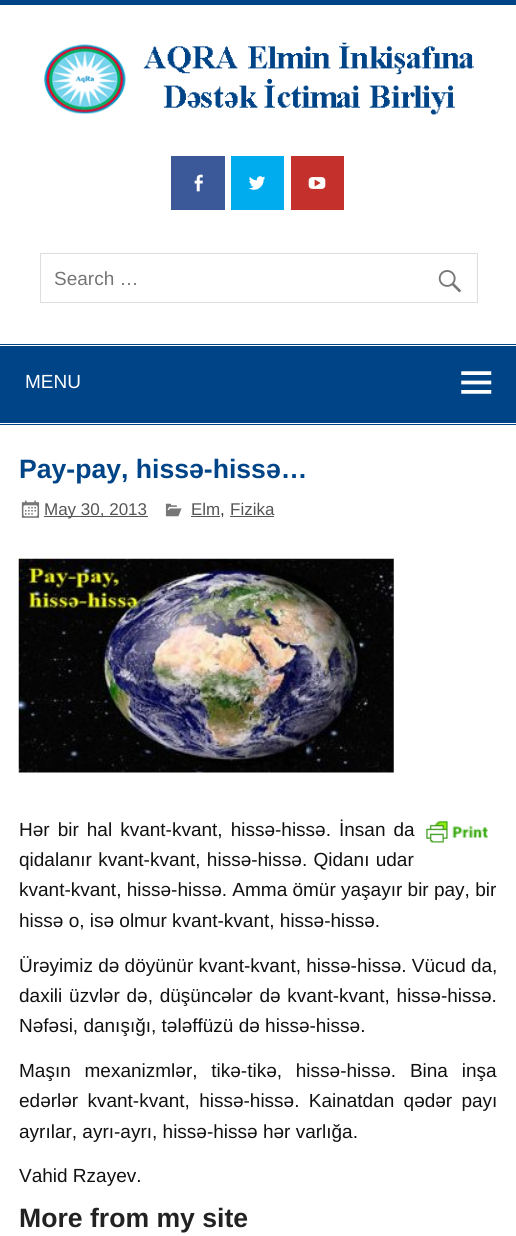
import math
import cairo


def write_spaced(ctx, x, y, s, letter, word):
	ctx.move_to(x, y)
	for ch in s:
		ctx.show_text(ch)
		ctx.rel_move_to(letter + word * (ch == ' '), 0)

def paste(ctx, path, x, y, w, h):
	ctx.save()
	ctx.set_source_surface(cairo.ImageSurface.create_from_png(path), x, y)
	ctx.rectangle(x, y, w, h)
	ctx.fill()
	ctx.restore()

def draw(ctx):
	ctx.set_source_rgb(1, 1, 1)
	ctx.paint()
	ctx.set_source_rgb(0, 0.267, 0.533)
	ctx.rectangle(0, 0, 516, 5)
	ctx.fill()
	paste(ctx, 'media/1.png', 44, 42, 430, 73)
	ctx.set_source_rgb(0.231, 0.349, 0.596)
	ctx.rectangle(171, 156, 54, 54)
	ctx.fill()
	paste(ctx, 'media/2.png', 194, 174, 9, 18)
	ctx.set_source_rgb(0, 0.675, 0.929)
	ctx.rectangle(231, 156, 53, 54)
	ctx.fill()
	paste(ctx, 'media/3.png', 248, 176, 18, 14)
	ctx.set_source_rgb(0.769, 0.188, 0.169)
	ctx.rectangle(291, 156, 53, 54)
	ctx.fill()
	paste(ctx, 'media/4.png', 308, 177, 18, 12)
	ctx.rectangle(40.5, 253.5, 437, 49)
	ctx.set_source_rgb(0.867, 0.867, 0.867)
	ctx.set_line_width(1)
	ctx.stroke()
	ctx.select_font_face('Liberation Sans')
	ctx.set_font_size(19)
	ctx.set_source_rgb(0.459, 0.459, 0.459)
	ctx.move_to(54, 285)
	ctx.show_text('Search …')
	paste(ctx, 'media/5.png', 438, 270, 24, 23)
	ctx.set_source_rgb(0, 0.267, 0.533)
	ctx.rectangle(0, 344, 516, 1)
	ctx.rectangle(0, 424, 516, 1)
	ctx.rectangle(0, 346, 516, 77)
	ctx.fill()
	ctx.set_source_rgb(1, 1, 1)
	ctx.move_to(25, 388)
	ctx.show_text('MENU')
	paste(ctx, 'media/6.png', 461, 371, 31, 23)
	ctx.select_font_face('Liberation Sans', cairo.FONT_SLANT_NORMAL, cairo.FONT_WEIGHT_BOLD)
	ctx.set_font_size(26.6)
	ctx.set_source_rgb(0, 0.267, 0.533)
	ctx.move_to(19, 478)
	ctx.show_text('Pay-pay, hissə-hissə…')
	paste(ctx, 'media/7.png', 21, 500, 19, 18)
	ctx.set_source_rgb(0.333, 0.333, 0.333)
	ctx.rectangle(44, 516, 104, 1)
	ctx.fill()
	ctx.select_font_face('Liberation Sans')
	ctx.set_font_size(17)
	ctx.move_to(44, 515)
	ctx.show_text('May 30, 2013')
	paste(ctx, 'media/8.png', 165, 503, 17, 14)
	ctx.move_to(191, 515)
	ctx.show_text('Elm')
	ctx.rectangle(191, 516, 29, 1)
	ctx.fill()
	ctx.set_source_rgb(0.2, 0.2, 0.2)
	ctx.move_to(220, 515)
	ctx.show_text(',')
	ctx.set_source_rgb(0.333, 0.333, 0.333)
	ctx.move_to(230, 515)
	ctx.show_text('Fizika')
	ctx.rectangle(230, 516, 44, 1)
	ctx.fill()
	paste(ctx, 'media/9.png', 18, 558, 376, 215)
	ctx.set_font_size(19)
	ctx.set_source_rgb(0.067, 0.067, 0.067)
	write_spaced(ctx, 19, 836, 'Hər bir hal kvant-kvant, hissə-hissə. İnsan da', 0, 2.75)
	write_spaced(ctx, 19, 866, 'qidalanır kvant-kvant, hissə-hissə. Qidanı udar', 0, 1)
	ctx.move_to(19, 896)
	ctx.show_text('kvant-kvant, hissə-hissə. Amma ömür yaşayır bir pay, bir')
	ctx.move_to(19, 927)
	ctx.show_text('hissə o, isə olmur kvant-kvant, hissə-hissə.')
	paste(ctx, 'media/10.png', 426, 821, 62, 22)
	ctx.move_to(19, 972)
	ctx.show_text('Ürəyimiz də döyünür kvant-kvant, hissə-hissə. Vücud da,')
	write_spaced(ctx, 19, 1002, 'daxili üzvlər də, düşüncələr də kvant-kvant, hissə-hissə.', 0, 1.5)
	ctx.move_to(19, 1032)
	ctx.show_text('Nəfəsi, danışığı, tələffüzü də hissə-hissə.')
	write_spaced(ctx, 19, 1077, 'Maşın mexanizmlər, tikə-tikə, hissə-hissə. Bina inşa', 0, 8.5)
	write_spaced(ctx, 19, 1107, 'edərlər kvant-kvant, hissə-hissə. Kainatdan qədər payı', 0, 4)
	ctx.move_to(19, 1138)
	ctx.show_text('ayrılar, ayrı-ayrı, hissə-hissə hər varlığa.')
	ctx.move_to(19, 1182)
	ctx.show_text('Vahid Rzayev.')
	ctx.select_font_face('Liberation Sans', cairo.FONT_SLANT_NORMAL, cairo.FONT_WEIGHT_BOLD)
	ctx.set_font_size(26.6)
	ctx.set_source_rgb(0.133, 0.133, 0.133)
	ctx.move_to(19, 1227)
	ctx.show_text('More from my site')


surface = cairo.ImageSurface(cairo.FORMAT_RGB24, 516, 1236)
ctx = cairo.Context(surface)
options = cairo.FontOptions()
options.set_hint_metrics(cairo.HINT_METRICS_OFF)
options.set_hint_style(cairo.HINT_STYLE_NONE)
ctx.set_font_options(options)
ctx.set_miter_limit(4)
draw(ctx)
surface.write_to_png('image.png')
